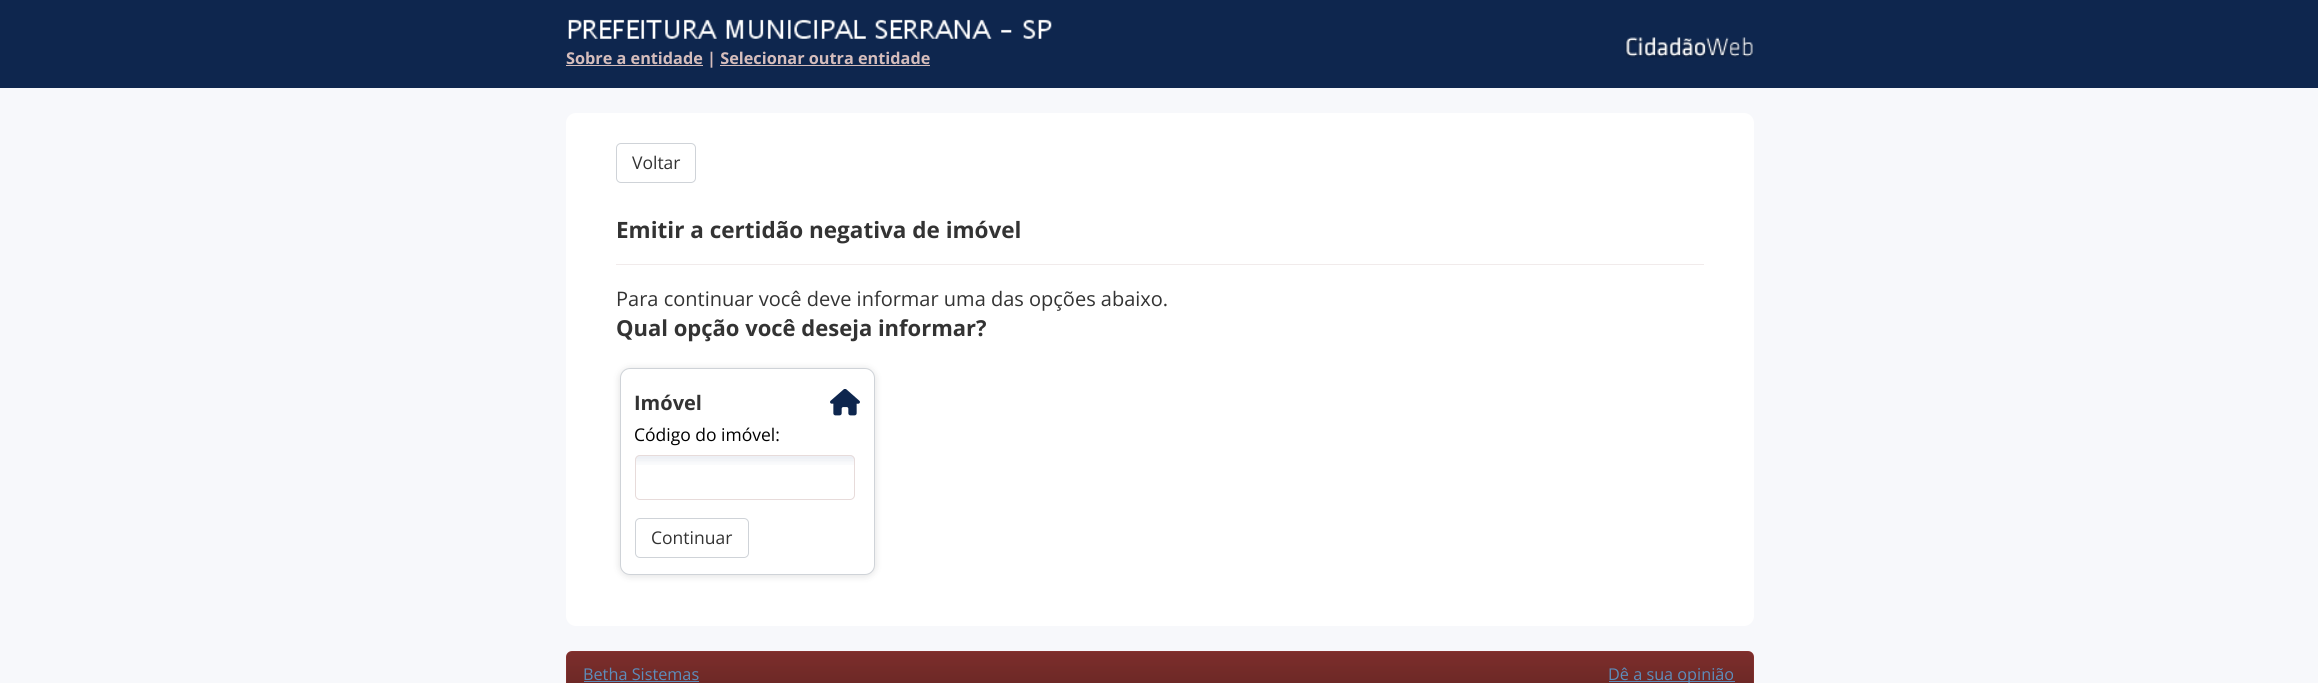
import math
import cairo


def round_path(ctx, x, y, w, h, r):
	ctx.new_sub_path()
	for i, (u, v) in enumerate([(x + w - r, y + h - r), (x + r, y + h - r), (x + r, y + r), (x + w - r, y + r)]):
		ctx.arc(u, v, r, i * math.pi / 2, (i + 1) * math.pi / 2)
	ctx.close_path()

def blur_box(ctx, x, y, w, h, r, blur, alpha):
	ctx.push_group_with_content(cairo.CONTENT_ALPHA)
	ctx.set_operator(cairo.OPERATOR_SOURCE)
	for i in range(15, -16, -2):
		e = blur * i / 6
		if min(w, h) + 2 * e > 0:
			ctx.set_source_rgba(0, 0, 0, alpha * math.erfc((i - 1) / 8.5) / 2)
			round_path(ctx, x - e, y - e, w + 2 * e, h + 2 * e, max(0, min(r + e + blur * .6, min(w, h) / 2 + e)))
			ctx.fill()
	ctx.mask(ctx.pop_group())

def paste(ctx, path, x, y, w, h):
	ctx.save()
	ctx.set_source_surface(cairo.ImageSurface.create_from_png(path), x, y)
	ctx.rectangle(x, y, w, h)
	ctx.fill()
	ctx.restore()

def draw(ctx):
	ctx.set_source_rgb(0.965, 0.969, 0.984)
	ctx.paint()
	ctx.set_source_rgb(0.055, 0.149, 0.306)
	ctx.rectangle(0, 0, 2318, 88)
	ctx.fill()
	paste(ctx, 'media/1.png', 568, 19, 484, 20)
	ctx.set_source_rgb(0.835, 0.741, 0.737)
	ctx.rectangle(566, 65, 137, 1)
	ctx.fill()
	ctx.select_font_face('Open Sans', cairo.FONT_SLANT_NORMAL, cairo.FONT_WEIGHT_BOLD)
	ctx.set_font_size(16.25)
	ctx.move_to(566, 64)
	ctx.show_text('Sobre a entidade | Selecionar outra entidade')
	ctx.rectangle(720, 65, 210, 1)
	ctx.fill()
	paste(ctx, 'media/2.png', 1625, 37, 128, 21)
	ctx.set_source_rgb(1, 1, 1)
	round_path(ctx, 566, 113, 1188, 513, 10)
	ctx.fill()
	round_path(ctx, 616.5, 143.5, 79, 39, 4.5)
	ctx.set_source_rgb(0.812, 0.827, 0.847)
	ctx.set_line_width(1)
	ctx.stroke()
	ctx.select_font_face('Open Sans')
	ctx.set_font_size(17.5)
	ctx.set_source_rgb(0.2, 0.2, 0.2)
	ctx.move_to(632, 169)
	ctx.show_text('Voltar')
	ctx.select_font_face('Open Sans', cairo.FONT_SLANT_NORMAL, cairo.FONT_WEIGHT_BOLD)
	ctx.set_font_size(22.5)
	ctx.move_to(616, 238)
	ctx.show_text('Emitir a certidão negativa de imóvel')
	ctx.set_source_rgb(0.945, 0.918, 0.918)
	ctx.rectangle(616, 264, 1088, 1)
	ctx.fill()
	ctx.select_font_face('Open Sans')
	ctx.set_font_size(20)
	ctx.set_source_rgb(0.2, 0.2, 0.2)
	ctx.move_to(616, 306)
	ctx.show_text('Para continuar você deve informar uma das opções abaixo.')
	ctx.select_font_face('Open Sans', cairo.FONT_SLANT_NORMAL, cairo.FONT_WEIGHT_BOLD)
	ctx.set_font_size(22)
	ctx.move_to(616, 336)
	ctx.show_text('Qual opção você deseja informar?')
	ctx.set_source_rgb(0.2, 0.2, 0.2)
	blur_box(ctx, 620, 369, 255, 207, 10, 4, 0.16)
	ctx.set_source_rgb(1, 1, 1)
	round_path(ctx, 620.5, 368.5, 254, 206, 9.5)
	ctx.fill_preserve()
	ctx.set_source_rgb(0.812, 0.827, 0.847)
	ctx.stroke()
	paste(ctx, 'media/3.png', 830, 389, 30, 27)
	ctx.set_font_size(20)
	ctx.set_source_rgb(0.2, 0.2, 0.2)
	ctx.move_to(634, 410)
	ctx.show_text('Imóvel')
	ctx.select_font_face('Open Sans')
	ctx.set_font_size(17.5)
	ctx.set_source_rgb(0, 0, 0)
	ctx.move_to(634, 441)
	ctx.show_text('Código do imóvel:')
	paste(ctx, 'media/4.png', 635, 455, 220, 10)
	round_path(ctx, 635.5, 455.5, 219, 44, 4.5)
	ctx.set_source_rgb(0.906, 0.859, 0.855)
	ctx.stroke()
	round_path(ctx, 635.5, 518.5, 113, 39, 4.5)
	ctx.set_source_rgb(0.812, 0.827, 0.847)
	ctx.stroke()
	ctx.set_source_rgb(0.2, 0.2, 0.2)
	ctx.move_to(651, 544)
	ctx.show_text('Continuar')
	ctx.set_source_rgb(0.573, 0.212, 0.2)
	round_path(ctx, 566, 651, 1188, 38, 6)
	ctx.fill()
	paste(ctx, 'media/5.png', 566, 651, 1188, 32)
	ctx.set_font_size(16.25)
	ctx.set_source_rgb(0.365, 0.553, 0.733)
	ctx.move_to(583, 680)
	ctx.show_text('Betha Sistemas')
	ctx.rectangle(584, 681, 115, 1)
	ctx.fill()
	ctx.rectangle(1609, 681, 126, 1)
	ctx.fill()
	ctx.move_to(1608, 680)
	ctx.show_text('Dê a sua opinião')


surface = cairo.ImageSurface(cairo.FORMAT_RGB24, 2318, 683)
ctx = cairo.Context(surface)
options = cairo.FontOptions()
options.set_hint_metrics(cairo.HINT_METRICS_OFF)
options.set_hint_style(cairo.HINT_STYLE_NONE)
ctx.set_font_options(options)
ctx.set_miter_limit(4)
draw(ctx)
surface.write_to_png('image.png')
